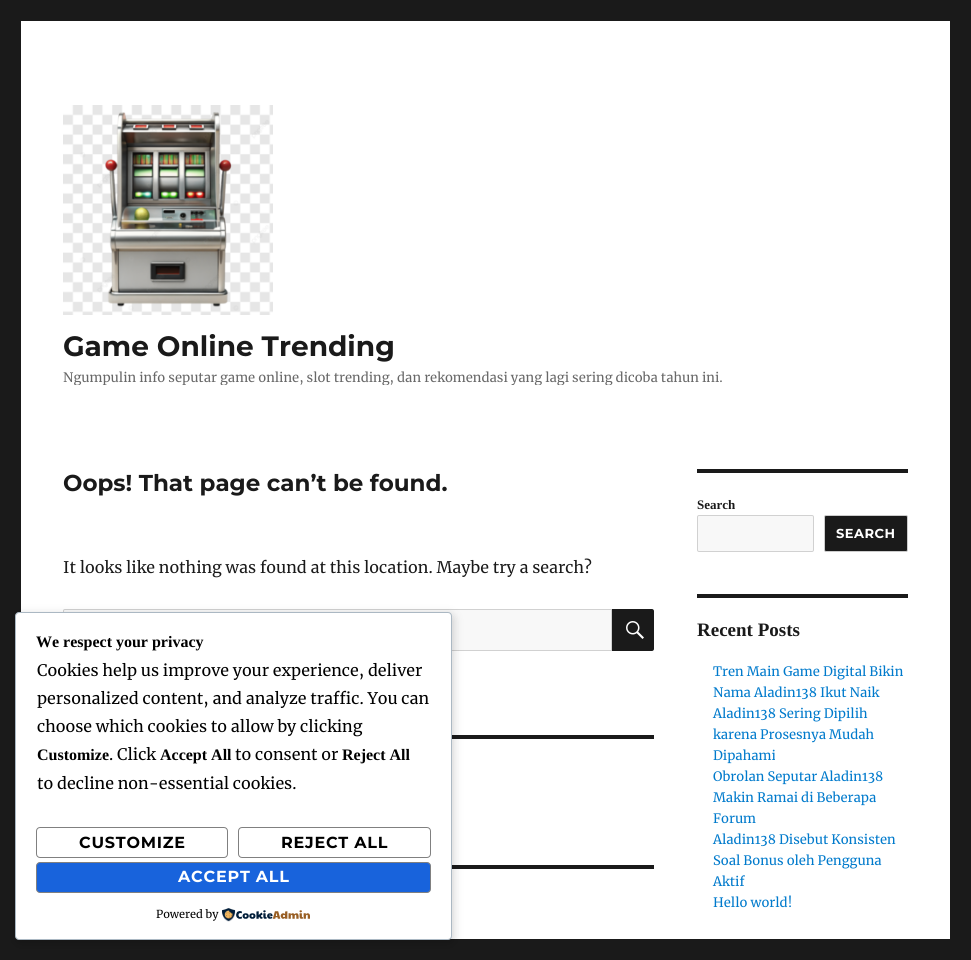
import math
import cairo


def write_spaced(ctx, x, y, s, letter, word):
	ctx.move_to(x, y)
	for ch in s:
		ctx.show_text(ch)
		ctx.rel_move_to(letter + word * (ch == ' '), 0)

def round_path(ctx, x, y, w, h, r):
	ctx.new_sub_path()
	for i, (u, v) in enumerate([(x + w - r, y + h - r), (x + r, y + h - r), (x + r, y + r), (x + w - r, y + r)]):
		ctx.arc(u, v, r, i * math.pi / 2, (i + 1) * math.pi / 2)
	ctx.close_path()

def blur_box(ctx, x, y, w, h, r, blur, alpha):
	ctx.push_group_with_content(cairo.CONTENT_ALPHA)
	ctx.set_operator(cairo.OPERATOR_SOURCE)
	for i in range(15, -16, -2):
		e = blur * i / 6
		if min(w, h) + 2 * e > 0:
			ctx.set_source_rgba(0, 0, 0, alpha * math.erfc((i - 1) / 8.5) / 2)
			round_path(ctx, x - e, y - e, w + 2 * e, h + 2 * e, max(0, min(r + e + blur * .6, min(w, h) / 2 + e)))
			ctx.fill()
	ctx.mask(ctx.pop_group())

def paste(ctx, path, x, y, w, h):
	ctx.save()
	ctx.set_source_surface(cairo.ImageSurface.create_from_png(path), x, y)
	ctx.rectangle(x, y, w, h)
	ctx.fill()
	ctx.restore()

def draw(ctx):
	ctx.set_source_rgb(0.102, 0.102, 0.102)
	ctx.paint()
	ctx.set_source_rgb(1, 1, 1)
	ctx.rectangle(21, 21, 929, 918)
	ctx.fill()
	paste(ctx, 'media/1.png', 63, 105, 210, 210)
	ctx.select_font_face('Montserrat Thin')
	ctx.set_font_size(28)
	ctx.set_source_rgb(0.102, 0.102, 0.102)
	ctx.move_to(63, 356)
	ctx.show_text('Game Online Trending')
	ctx.save()
	ctx.rectangle(63, 105, 660, 280)
	ctx.clip()
	ctx.select_font_face('Merriweather')
	ctx.set_font_size(13)
	ctx.set_source_rgb(0.408, 0.408, 0.408)
	ctx.move_to(63, 382)
	ctx.show_text('Ngumpulin info seputar game online, slot trending, dan rekomendasi yang lagi sering dicoba tahun ini.')
	ctx.restore()
	ctx.set_font_size(23)
	ctx.move_to(63, 491)
	ctx.show_text('Oops! That page can’t be found.')
	ctx.select_font_face('Merriweather')
	ctx.set_font_size(16)
	ctx.move_to(63, 573)
	ctx.show_text('It looks like nothing was found at this location. Maybe try a search?')
	ctx.set_source_rgb(0.969, 0.969, 0.969)
	ctx.new_path()
	ctx.move_to(65, 609.5)
	ctx.line_to(611.5, 609.5)
	ctx.line_to(611.5, 650.5)
	ctx.line_to(65, 650.5)
	ctx.curve_to(64, 650.5, 63.5, 650, 63.5, 649)
	ctx.line_to(63.5, 611)
	ctx.curve_to(63.5, 610, 64, 609.5, 65, 609.5)
	ctx.close_path()
	ctx.fill_preserve()
	ctx.set_source_rgb(0.82, 0.82, 0.82)
	ctx.set_line_width(1)
	ctx.stroke()
	ctx.set_source_rgb(0.102, 0.102, 0.102)
	ctx.new_path()
	ctx.move_to(612, 609)
	ctx.line_to(652, 609)
	ctx.curve_to(653, 609, 654, 610, 654, 611)
	ctx.line_to(654, 649)
	ctx.curve_to(654, 650, 653, 651, 652, 651)
	ctx.line_to(612, 651)
	ctx.close_path()
	ctx.fill()
	paste(ctx, 'media/2.png', 626, 621, 18, 18)
	ctx.rectangle(452, 735, 202, 4)
	ctx.rectangle(452, 865, 202, 4)
	ctx.rectangle(697, 469, 211, 4)
	ctx.fill()
	ctx.select_font_face('Liberation Serif', cairo.FONT_SLANT_NORMAL, cairo.FONT_WEIGHT_BOLD)
	ctx.set_font_size(13)
	ctx.move_to(697, 509)
	ctx.show_text('Search')
	ctx.set_source_rgb(0.969, 0.969, 0.969)
	round_path(ctx, 697.5, 515.5, 116, 36, 1.5)
	ctx.fill_preserve()
	ctx.set_source_rgb(0.82, 0.82, 0.82)
	ctx.stroke()
	ctx.set_source_rgb(0.102, 0.102, 0.102)
	round_path(ctx, 824.5, 515.5, 83, 36, 1.5)
	ctx.fill_preserve()
	ctx.set_source_rgb(0.8, 0.8, 0.8)
	ctx.stroke()
	ctx.select_font_face('Montserrat Thin')
	ctx.set_source_rgb(1, 1, 1)
	write_spaced(ctx, 836, 538, 'SEARCH', 0.5, 0)
	ctx.set_source_rgb(0.102, 0.102, 0.102)
	ctx.rectangle(697, 594, 211, 4)
	ctx.fill()
	ctx.select_font_face('Liberation Serif', cairo.FONT_SLANT_NORMAL, cairo.FONT_WEIGHT_BOLD)
	ctx.set_font_size(19)
	ctx.move_to(697, 636)
	ctx.show_text('Recent Posts')
	ctx.select_font_face('Merriweather')
	ctx.set_font_size(13)
	ctx.set_source_rgb(0, 0.478, 0.8)
	for x, y, s in [
		(713, 676, 'Tren Main Game Digital Bikin'),
		(713, 697, 'Nama Aladin138 Ikut Naik'),
		(713, 718, 'Aladin138 Sering Dipilih'),
		(713, 739, 'karena Prosesnya Mudah'),
		(713, 760, 'Dipahami'),
		(713, 781, 'Obrolan Seputar Aladin138'),
		(713, 802, 'Makin Ramai di Beberapa'),
		(713, 823, 'Forum'),
		(713, 844, 'Aladin138 Disebut Konsisten'),
		(713, 865, 'Soal Bonus oleh Pengguna'),
		(713, 886, 'Aktif'),
		(713, 907, 'Hello world!'),
	]:
		ctx.move_to(x, y)
		ctx.show_text(s)
	ctx.set_source_rgb(0, 0, 0)
	blur_box(ctx, 16, 615, 437, 328, 4, 5, 0.2)
	ctx.set_source_rgb(1, 1, 1)
	round_path(ctx, 15.5, 612.5, 436, 327, 3.5)
	ctx.fill_preserve()
	ctx.set_source_rgb(0.671, 0.722, 0.765)
	ctx.stroke()
	ctx.select_font_face('Liberation Serif', cairo.FONT_SLANT_NORMAL, cairo.FONT_WEIGHT_BOLD)
	ctx.set_font_size(16)
	ctx.set_source_rgb(0, 0, 0)
	ctx.move_to(36, 647)
	ctx.show_text('We respect your privacy')
	ctx.select_font_face('Merriweather')
	for x, y, s in [
		(37, 676, 'Cookies help us improve your experience, deliver'),
		(37, 704, 'personalized content, and analyze traffic. You can'),
		(37, 732, 'choose which cookies to allow by clicking'),
	]:
		ctx.move_to(x, y)
		ctx.show_text(s)
	ctx.select_font_face('Liberation Serif', cairo.FONT_SLANT_NORMAL, cairo.FONT_WEIGHT_BOLD)
	ctx.move_to(37, 760)
	ctx.show_text('Customize')
	ctx.select_font_face('Merriweather')
	ctx.move_to(109, 760)
	ctx.show_text('. Click')
	ctx.select_font_face('Liberation Serif', cairo.FONT_SLANT_NORMAL, cairo.FONT_WEIGHT_BOLD)
	ctx.move_to(160, 760)
	ctx.show_text('Accept All')
	ctx.select_font_face('Merriweather')
	ctx.move_to(235, 760)
	ctx.show_text('to consent or')
	ctx.select_font_face('Liberation Serif', cairo.FONT_SLANT_NORMAL, cairo.FONT_WEIGHT_BOLD)
	ctx.move_to(342, 760)
	ctx.show_text('Reject All')
	ctx.select_font_face('Merriweather')
	ctx.move_to(37, 789)
	ctx.show_text('to decline non-essential cookies.')
	round_path(ctx, 36.5, 827.5, 191, 30, 3.5)
	ctx.set_source_rgb(0.502, 0.502, 0.502)
	ctx.stroke()
	ctx.select_font_face('Montserrat Thin')
	ctx.set_source_rgb(0, 0, 0)
	write_spaced(ctx, 79, 848, 'CUSTOMIZE', 0.75, 0)
	round_path(ctx, 238.5, 827.5, 192, 30, 3.5)
	ctx.set_source_rgb(0.502, 0.502, 0.502)
	ctx.stroke()
	ctx.set_source_rgb(0, 0, 0)
	write_spaced(ctx, 281, 848, 'REJECT ALL', 0.75, 0)
	ctx.set_source_rgb(0.094, 0.388, 0.863)
	round_path(ctx, 36.5, 862.5, 394, 30, 3.5)
	ctx.fill_preserve()
	ctx.set_source_rgb(0.502, 0.502, 0.502)
	ctx.stroke()
	ctx.set_source_rgb(1, 1, 1)
	write_spaced(ctx, 178, 882, 'ACCEPT ALL', 0.75, 0)
	ctx.select_font_face('Merriweather')
	ctx.set_font_size(11)
	ctx.set_source_rgb(0, 0, 0)
	ctx.move_to(156, 918)
	ctx.show_text('Powered by')
	paste(ctx, 'media/3.png', 222, 908, 88, 14)


surface = cairo.ImageSurface(cairo.FORMAT_RGB24, 971, 960)
ctx = cairo.Context(surface)
options = cairo.FontOptions()
options.set_hint_metrics(cairo.HINT_METRICS_OFF)
options.set_hint_style(cairo.HINT_STYLE_NONE)
ctx.set_font_options(options)
ctx.set_miter_limit(4)
draw(ctx)
surface.write_to_png('image.png')
